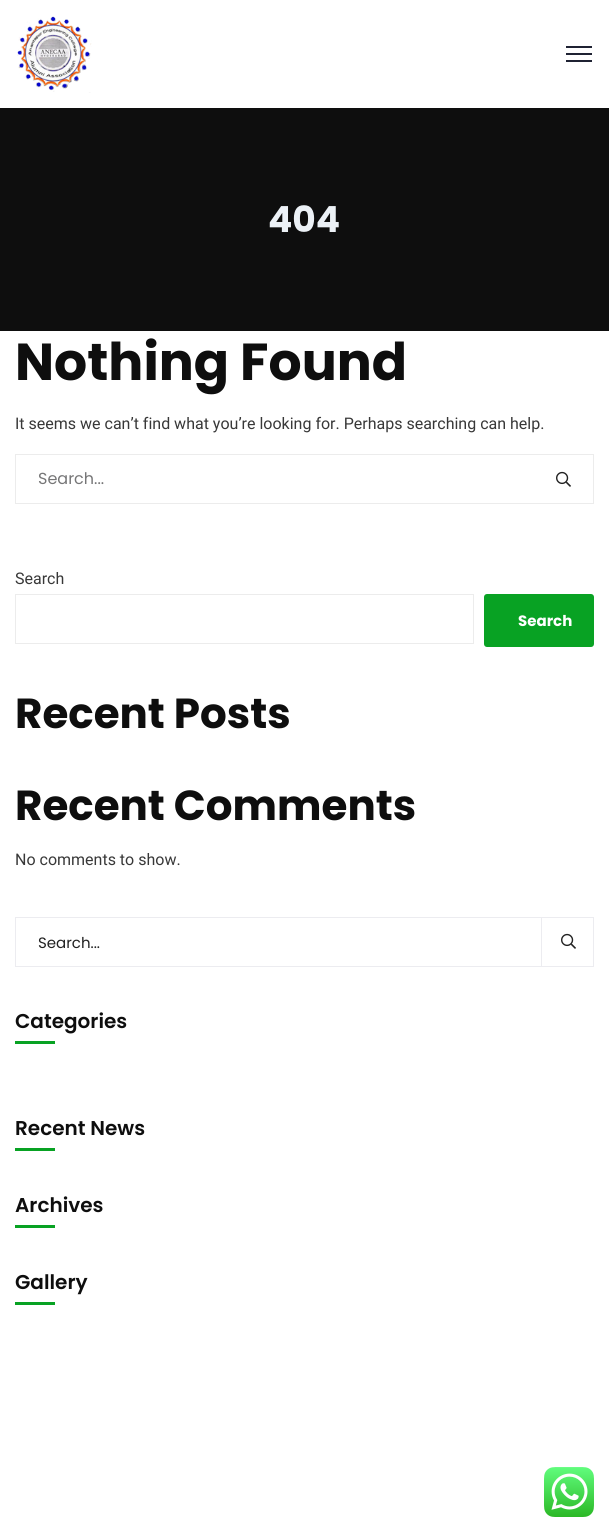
import math
import cairo


def round_path(ctx, x, y, w, h, r):
	ctx.new_sub_path()
	for i, (u, v) in enumerate([(x + w - r, y + h - r), (x + r, y + h - r), (x + r, y + r), (x + w - r, y + r)]):
		ctx.arc(u, v, r, i * math.pi / 2, (i + 1) * math.pi / 2)
	ctx.close_path()

def paste(ctx, path, x, y, w, h):
	ctx.save()
	ctx.set_source_surface(cairo.ImageSurface.create_from_png(path), x, y)
	ctx.rectangle(x, y, w, h)
	ctx.fill()
	ctx.restore()

def draw(ctx):
	ctx.set_source_rgb(1, 1, 1)
	ctx.paint()
	paste(ctx, 'media/1.png', 17, 16, 75, 77)
	ctx.set_source_rgb(0.122, 0.133, 0.2)
	ctx.rectangle(566, 46, 26, 2)
	ctx.rectangle(566, 53, 26, 2)
	ctx.rectangle(566, 60, 26, 2)
	ctx.fill()
	ctx.set_source_rgb(0.055, 0.055, 0.055)
	ctx.rectangle(0, 108, 609, 223)
	ctx.fill()
	ctx.select_font_face('Poppins', cairo.FONT_SLANT_NORMAL, cairo.FONT_WEIGHT_BOLD)
	ctx.set_font_size(36)
	ctx.set_source_rgb(0.925, 0.945, 0.961)
	ctx.move_to(268, 232)
	ctx.show_text('404')
	ctx.set_font_size(52)
	ctx.set_source_rgb(0.055, 0.055, 0.055)
	ctx.move_to(15, 380)
	ctx.show_text('Nothing Found')
	ctx.select_font_face('Roboto')
	ctx.set_font_size(16)
	ctx.set_source_rgb(0.22, 0.22, 0.22)
	ctx.move_to(15, 429)
	ctx.show_text('It seems we can’t find what you’re looking for. Perhaps searching can help.')
	ctx.rectangle(15.5, 454.5, 578, 49)
	ctx.set_source_rgb(0.925, 0.925, 0.925)
	ctx.set_line_width(1)
	ctx.stroke()
	ctx.select_font_face('Poppins')
	ctx.set_source_rgb(0.463, 0.463, 0.467)
	ctx.move_to(38, 484)
	ctx.show_text('Search...')
	paste(ctx, 'media/2.png', 556, 471, 15, 16)
	ctx.select_font_face('Roboto')
	ctx.set_source_rgb(0.22, 0.22, 0.22)
	ctx.move_to(15, 584)
	ctx.show_text('Search')
	ctx.rectangle(15.5, 594.5, 458, 49)
	ctx.set_source_rgb(0.925, 0.925, 0.925)
	ctx.stroke()
	ctx.set_source_rgb(0.035, 0.635, 0.137)
	round_path(ctx, 484, 594, 110, 53, 3)
	ctx.fill()
	ctx.select_font_face('Poppins', cairo.FONT_SLANT_NORMAL, cairo.FONT_WEIGHT_BOLD)
	ctx.set_font_size(15)
	ctx.set_source_rgb(1, 1, 1)
	ctx.move_to(518, 626)
	ctx.show_text('Search')
	ctx.set_font_size(42)
	ctx.set_source_rgb(0.055, 0.055, 0.055)
	ctx.move_to(15, 728)
	ctx.show_text('Recent Posts')
	ctx.move_to(15, 820)
	ctx.show_text('Recent Comments')
	ctx.select_font_face('Roboto')
	ctx.set_font_size(16)
	ctx.set_source_rgb(0.22, 0.22, 0.22)
	ctx.move_to(15, 865)
	ctx.show_text('No comments to show.')
	ctx.rectangle(15.5, 917.5, 578, 49)
	ctx.set_source_rgb(0.925, 0.925, 0.941)
	ctx.stroke()
	ctx.select_font_face('Poppins')
	ctx.set_font_size(15)
	ctx.set_source_rgb(0.133, 0.133, 0.133)
	ctx.move_to(38, 948)
	ctx.show_text('Search...')
	ctx.set_source_rgb(0.925, 0.925, 0.941)
	ctx.rectangle(541, 917, 1, 50)
	ctx.fill()
	paste(ctx, 'media/2.png', 561, 933, 15, 16)
	ctx.select_font_face('Poppins SemiBold')
	ctx.set_font_size(20)
	ctx.set_source_rgb(0.055, 0.055, 0.055)
	ctx.move_to(15, 1028)
	ctx.show_text('Categories')
	ctx.set_source_rgb(0.035, 0.635, 0.137)
	ctx.rectangle(15, 1041, 40, 3)
	ctx.fill()
	ctx.set_source_rgb(0.055, 0.055, 0.055)
	ctx.move_to(15, 1135)
	ctx.show_text('Recent News')
	ctx.set_source_rgb(0.035, 0.635, 0.137)
	ctx.rectangle(15, 1148, 40, 3)
	ctx.fill()
	ctx.set_source_rgb(0.055, 0.055, 0.055)
	ctx.move_to(15, 1212)
	ctx.show_text('Archives')
	ctx.set_source_rgb(0.035, 0.635, 0.137)
	ctx.rectangle(15, 1225, 40, 3)
	ctx.fill()
	ctx.set_source_rgb(0.055, 0.055, 0.055)
	ctx.move_to(15, 1289)
	ctx.show_text('Gallery')
	ctx.set_source_rgb(0.035, 0.635, 0.137)
	ctx.rectangle(15, 1302, 40, 3)
	ctx.fill()
	paste(ctx, 'media/3.png', 544, 1467, 50, 50)


surface = cairo.ImageSurface(cairo.FORMAT_RGB24, 609, 1532)
ctx = cairo.Context(surface)
options = cairo.FontOptions()
options.set_hint_metrics(cairo.HINT_METRICS_OFF)
options.set_hint_style(cairo.HINT_STYLE_NONE)
ctx.set_font_options(options)
ctx.set_miter_limit(4)
draw(ctx)
surface.write_to_png('image.png')
